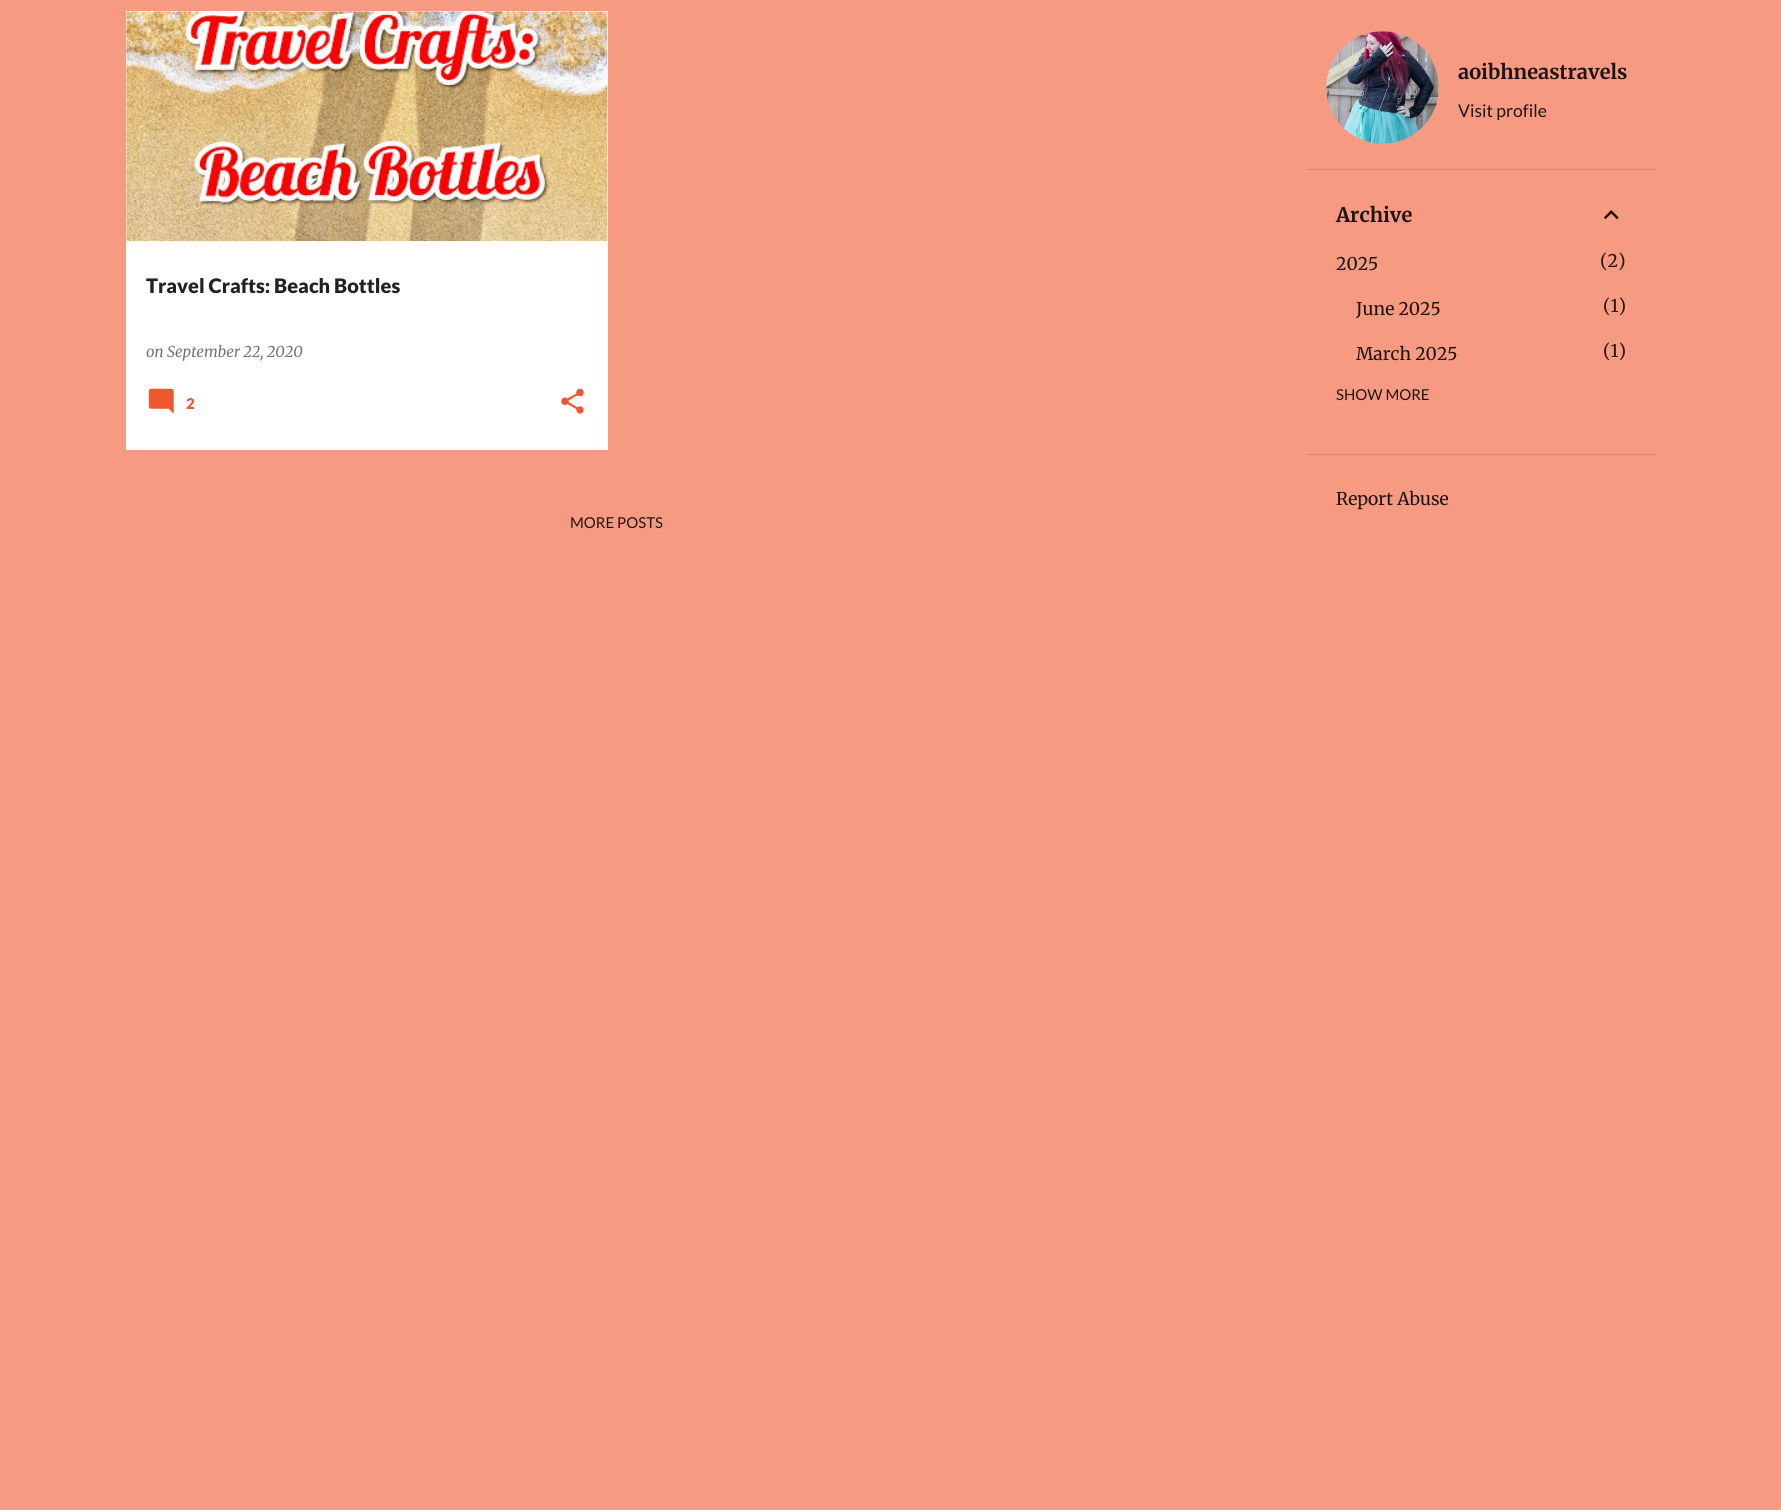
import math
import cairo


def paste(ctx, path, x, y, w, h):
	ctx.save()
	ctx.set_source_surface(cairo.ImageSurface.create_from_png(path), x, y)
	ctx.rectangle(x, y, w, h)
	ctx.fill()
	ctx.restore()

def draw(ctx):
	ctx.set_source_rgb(0.961, 0.608, 0.51)
	ctx.paint()
	ctx.set_source_rgb(1, 1, 1)
	ctx.rectangle(126, 11, 482, 439)
	ctx.fill()
	paste(ctx, 'media/1.png', 126, 11, 482, 231)
	ctx.save()
	ctx.rectangle(146, 271, 442, 60)
	ctx.clip()
	ctx.select_font_face('Lato Black')
	ctx.set_font_size(20)
	ctx.set_source_rgb(0.129, 0.129, 0.129)
	ctx.move_to(146, 293)
	ctx.show_text('Travel Crafts: Beach Bottles')
	ctx.restore()
	ctx.select_font_face('Merriweather', cairo.FONT_SLANT_ITALIC)
	ctx.set_font_size(15)
	ctx.set_source_rgb(0.459, 0.459, 0.459)
	ctx.move_to(146, 357)
	ctx.show_text('on September 22, 2020')
	paste(ctx, 'media/2.png', 148, 388, 26, 26)
	ctx.select_font_face('Lato Black')
	ctx.set_source_rgb(0.933, 0.345, 0.18)
	ctx.move_to(186, 409)
	ctx.show_text('2')
	paste(ctx, 'media/3.png', 561, 388, 23, 26)
	ctx.select_font_face('Lato')
	ctx.set_source_rgb(0.125, 0.078, 0.067)
	ctx.move_to(570, 528)
	ctx.show_text('MORE POSTS')
	paste(ctx, 'media/4.png', 1326, 31, 113, 113)
	ctx.select_font_face('Merriweather', cairo.FONT_SLANT_NORMAL, cairo.FONT_WEIGHT_BOLD)
	ctx.set_font_size(20)
	ctx.move_to(1458, 79)
	ctx.show_text('aoibhneastravels')
	ctx.select_font_face('Lato')
	ctx.set_font_size(17.5)
	ctx.move_to(1458, 117)
	ctx.show_text('Visit profile')
	ctx.set_source_rgb(0.847, 0.533, 0.447)
	ctx.rectangle(1306, 169, 350, 1)
	ctx.fill()
	ctx.select_font_face('Merriweather', cairo.FONT_SLANT_NORMAL, cairo.FONT_WEIGHT_BOLD)
	ctx.set_font_size(20)
	ctx.set_source_rgb(0.125, 0.078, 0.067)
	ctx.move_to(1336, 222)
	ctx.show_text('Archive')
	paste(ctx, 'media/5.png', 1603, 210, 16, 10)
	ctx.select_font_face('Merriweather')
	ctx.set_font_size(17.5)
	for x, y, s in [
		(1336, 270, '2025'),
		(1600, 267, '(2)'),
		(1356, 315, 'June 2025'),
		(1603, 312, '(1)'),
		(1356, 360, 'March 2025'),
		(1603, 357, '(1)'),
	]:
		ctx.move_to(x, y)
		ctx.show_text(s)
	ctx.select_font_face('Lato')
	ctx.set_font_size(15)
	ctx.move_to(1336, 400)
	ctx.show_text('SHOW MORE')
	ctx.set_source_rgb(0.847, 0.533, 0.447)
	ctx.rectangle(1306, 454, 350, 1)
	ctx.fill()
	ctx.select_font_face('Merriweather')
	ctx.set_font_size(17.5)
	ctx.set_source_rgb(0.125, 0.078, 0.067)
	ctx.move_to(1336, 505)
	ctx.show_text('Report Abuse')


surface = cairo.ImageSurface(cairo.FORMAT_RGB24, 1781, 1510)
ctx = cairo.Context(surface)
options = cairo.FontOptions()
options.set_hint_metrics(cairo.HINT_METRICS_OFF)
options.set_hint_style(cairo.HINT_STYLE_NONE)
ctx.set_font_options(options)
ctx.set_miter_limit(4)
draw(ctx)
surface.write_to_png('image.png')
